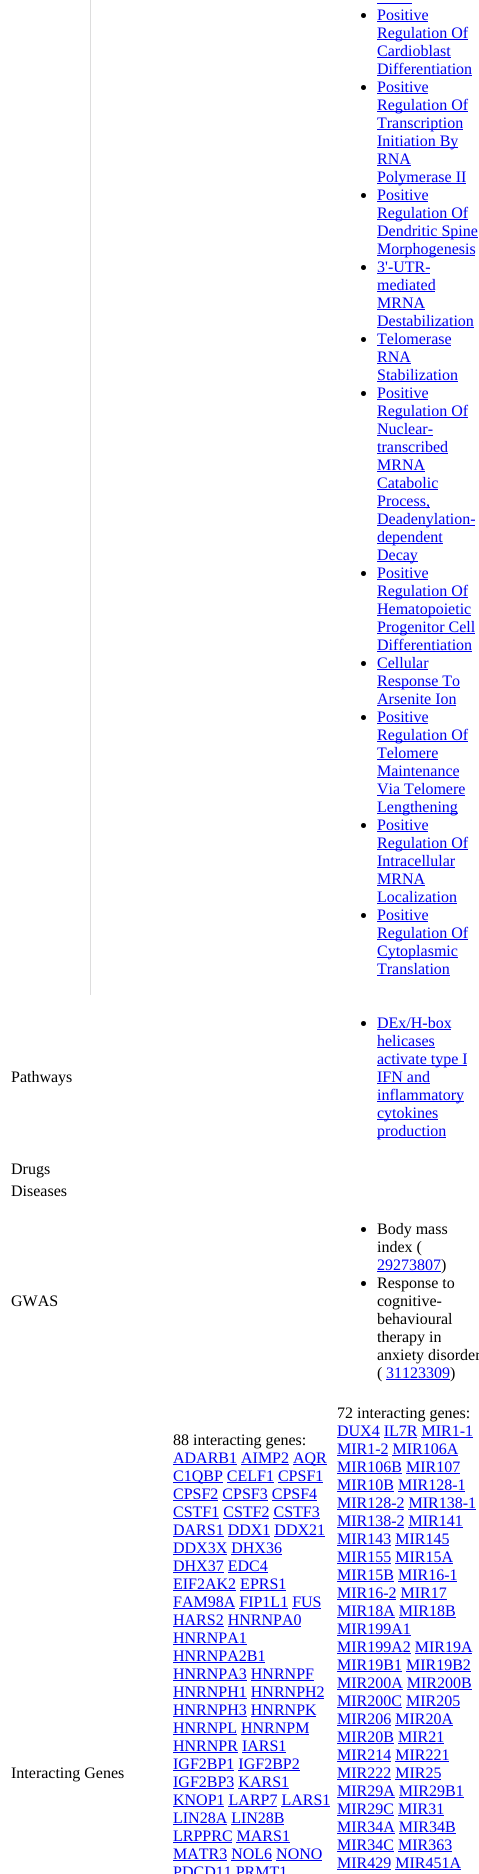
import math
import cairo


def draw(ctx):
	ctx.set_source_rgb(1, 1, 1)
	ctx.paint()
	ctx.set_source_rgb(0.867, 0.867, 0.867)
	ctx.rectangle(90, 0, 1, 995)
	ctx.fill()
	ctx.set_source_rgb(0, 0, 0.933)
	ctx.rectangle(377, 3, 35, 1)
	ctx.fill()
	ctx.set_source_rgb(0, 0, 0)
	ctx.arc(363.5, 15.5, 2.5, 0, 2 * math.pi)
	ctx.fill()
	ctx.select_font_face('Liberation Serif')
	ctx.set_font_size(16)
	ctx.set_source_rgb(0, 0, 0.933)
	ctx.move_to(377, 20)
	ctx.show_text('Positive')
	ctx.rectangle(377, 21, 51, 1)
	ctx.fill()
	ctx.rectangle(377, 39, 91, 1)
	ctx.fill()
	ctx.move_to(377, 38)
	ctx.show_text('Regulation Of')
	ctx.move_to(377, 56)
	ctx.show_text('Cardioblast')
	ctx.rectangle(377, 57, 74, 1)
	ctx.fill()
	ctx.move_to(377, 74)
	ctx.show_text('Differentiation')
	ctx.rectangle(377, 75, 95, 1)
	ctx.fill()
	ctx.set_source_rgb(0, 0, 0)
	ctx.arc(363.5, 87.5, 2.5, 0, 2 * math.pi)
	ctx.fill()
	ctx.set_source_rgb(0, 0, 0.933)
	ctx.move_to(377, 92)
	ctx.show_text('Positive')
	ctx.rectangle(377, 93, 51, 1)
	ctx.fill()
	ctx.rectangle(377, 111, 91, 1)
	ctx.fill()
	ctx.move_to(377, 110)
	ctx.show_text('Regulation Of')
	ctx.rectangle(377, 129, 86, 1)
	ctx.fill()
	ctx.move_to(377, 128)
	ctx.show_text('Transcription')
	ctx.rectangle(377, 147, 81, 1)
	ctx.fill()
	ctx.move_to(377, 146)
	ctx.show_text('Initiation By')
	ctx.move_to(377, 164)
	ctx.show_text('RNA')
	ctx.rectangle(377, 165, 34, 1)
	ctx.fill()
	ctx.rectangle(377, 183, 89, 1)
	ctx.fill()
	ctx.move_to(377, 182)
	ctx.show_text('Polymerase II')
	ctx.set_source_rgb(0, 0, 0)
	ctx.new_path()
	ctx.arc(363.5, 195.5, 2.5, 0, 2 * math.pi)
	ctx.fill()
	ctx.set_source_rgb(0, 0, 0.933)
	ctx.move_to(377, 200)
	ctx.show_text('Positive')
	ctx.rectangle(377, 201, 51, 1)
	ctx.fill()
	ctx.rectangle(377, 219, 91, 1)
	ctx.fill()
	ctx.move_to(377, 218)
	ctx.show_text('Regulation Of')
	ctx.rectangle(377, 237, 101, 1)
	ctx.fill()
	ctx.move_to(377, 236)
	ctx.show_text('Dendritic Spine')
	ctx.rectangle(377, 255, 98, 1)
	ctx.fill()
	ctx.move_to(377, 254)
	ctx.show_text('Morphogenesis')
	ctx.set_source_rgb(0, 0, 0)
	ctx.new_path()
	ctx.arc(363.5, 267.5, 2.5, 0, 2 * math.pi)
	ctx.fill()
	ctx.set_source_rgb(0, 0, 0.933)
	ctx.move_to(377, 272)
	ctx.show_text('3\'-UTR-')
	ctx.rectangle(377, 273, 53, 1)
	ctx.fill()
	ctx.move_to(377, 290)
	ctx.show_text('mediated')
	ctx.rectangle(377, 291, 58, 1)
	ctx.fill()
	ctx.move_to(377, 308)
	ctx.show_text('MRNA')
	ctx.rectangle(377, 309, 48, 1)
	ctx.fill()
	ctx.move_to(377, 326)
	ctx.show_text('Destabilization')
	ctx.rectangle(377, 327, 97, 1)
	ctx.fill()
	ctx.set_source_rgb(0, 0, 0)
	ctx.arc(363.5, 339.5, 2.5, 0, 2 * math.pi)
	ctx.fill()
	ctx.set_source_rgb(0, 0, 0.933)
	ctx.move_to(377, 344)
	ctx.show_text('Telomerase')
	ctx.rectangle(377, 345, 74, 1)
	ctx.fill()
	ctx.move_to(377, 362)
	ctx.show_text('RNA')
	ctx.rectangle(377, 363, 34, 1)
	ctx.fill()
	ctx.move_to(377, 380)
	ctx.show_text('Stabilization')
	ctx.rectangle(377, 381, 81, 1)
	ctx.fill()
	ctx.set_source_rgb(0, 0, 0)
	ctx.arc(363.5, 393.5, 2.5, 0, 2 * math.pi)
	ctx.fill()
	ctx.set_source_rgb(0, 0, 0.933)
	ctx.move_to(377, 398)
	ctx.show_text('Positive')
	ctx.rectangle(377, 399, 51, 1)
	ctx.fill()
	ctx.rectangle(377, 417, 91, 1)
	ctx.fill()
	ctx.move_to(377, 416)
	ctx.show_text('Regulation Of')
	ctx.move_to(377, 434)
	ctx.show_text('Nuclear-')
	ctx.rectangle(377, 435, 56, 1)
	ctx.fill()
	ctx.move_to(377, 452)
	ctx.show_text('transcribed')
	ctx.rectangle(377, 453, 71, 1)
	ctx.fill()
	ctx.move_to(377, 470)
	ctx.show_text('MRNA')
	ctx.rectangle(377, 471, 48, 1)
	ctx.fill()
	ctx.move_to(377, 488)
	ctx.show_text('Catabolic')
	ctx.rectangle(377, 489, 61, 1)
	ctx.fill()
	ctx.rectangle(377, 507, 53, 1)
	ctx.fill()
	ctx.move_to(377, 506)
	ctx.show_text('Process,')
	ctx.rectangle(377, 525, 98, 1)
	ctx.fill()
	ctx.move_to(377, 524)
	ctx.show_text('Deadenylation-')
	ctx.rectangle(377, 543, 66, 1)
	ctx.fill()
	ctx.move_to(377, 542)
	ctx.show_text('dependent')
	ctx.rectangle(377, 561, 41, 1)
	ctx.fill()
	ctx.move_to(377, 560)
	ctx.show_text('Decay')
	ctx.set_source_rgb(0, 0, 0)
	ctx.new_path()
	ctx.arc(363.5, 573.5, 2.5, 0, 2 * math.pi)
	ctx.fill()
	ctx.set_source_rgb(0, 0, 0.933)
	ctx.move_to(377, 578)
	ctx.show_text('Positive')
	ctx.rectangle(377, 579, 51, 1)
	ctx.fill()
	ctx.rectangle(377, 597, 91, 1)
	ctx.fill()
	ctx.move_to(377, 596)
	ctx.show_text('Regulation Of')
	ctx.rectangle(377, 615, 94, 1)
	ctx.fill()
	ctx.move_to(377, 614)
	ctx.show_text('Hematopoietic')
	ctx.rectangle(377, 633, 98, 1)
	ctx.fill()
	ctx.move_to(377, 632)
	ctx.show_text('Progenitor Cell')
	ctx.move_to(377, 650)
	ctx.show_text('Differentiation')
	ctx.rectangle(377, 651, 95, 1)
	ctx.fill()
	ctx.set_source_rgb(0, 0, 0)
	ctx.arc(363.5, 663.5, 2.5, 0, 2 * math.pi)
	ctx.fill()
	ctx.set_source_rgb(0, 0, 0.933)
	ctx.move_to(377, 668)
	ctx.show_text('Cellular')
	ctx.rectangle(377, 669, 51, 1)
	ctx.fill()
	ctx.rectangle(377, 687, 83, 1)
	ctx.fill()
	ctx.move_to(377, 686)
	ctx.show_text('Response To')
	ctx.move_to(377, 704)
	ctx.show_text('Arsenite Ion')
	ctx.rectangle(377, 705, 79, 1)
	ctx.fill()
	ctx.set_source_rgb(0, 0, 0)
	ctx.arc(363.5, 717.5, 2.5, 0, 2 * math.pi)
	ctx.fill()
	ctx.set_source_rgb(0, 0, 0.933)
	ctx.move_to(377, 722)
	ctx.show_text('Positive')
	ctx.rectangle(377, 723, 51, 1)
	ctx.fill()
	ctx.rectangle(377, 741, 91, 1)
	ctx.fill()
	ctx.move_to(377, 740)
	ctx.show_text('Regulation Of')
	ctx.move_to(377, 758)
	ctx.show_text('Telomere')
	ctx.rectangle(377, 759, 61, 1)
	ctx.fill()
	ctx.move_to(377, 776)
	ctx.show_text('Maintenance')
	ctx.rectangle(377, 777, 82, 1)
	ctx.fill()
	ctx.move_to(377, 794)
	ctx.show_text('Via Telomere')
	ctx.rectangle(377, 795, 88, 1)
	ctx.fill()
	ctx.rectangle(377, 813, 81, 1)
	ctx.fill()
	ctx.move_to(377, 812)
	ctx.show_text('Lengthening')
	ctx.set_source_rgb(0, 0, 0)
	ctx.new_path()
	ctx.arc(363.5, 825.5, 2.5, 0, 2 * math.pi)
	ctx.fill()
	ctx.set_source_rgb(0, 0, 0.933)
	ctx.move_to(377, 830)
	ctx.show_text('Positive')
	ctx.rectangle(377, 831, 51, 1)
	ctx.fill()
	ctx.rectangle(377, 849, 91, 1)
	ctx.fill()
	ctx.move_to(377, 848)
	ctx.show_text('Regulation Of')
	ctx.move_to(377, 866)
	ctx.show_text('Intracellular')
	ctx.rectangle(377, 867, 78, 1)
	ctx.fill()
	ctx.move_to(377, 884)
	ctx.show_text('MRNA')
	ctx.rectangle(377, 885, 48, 1)
	ctx.fill()
	ctx.move_to(377, 902)
	ctx.show_text('Localization')
	ctx.rectangle(377, 903, 80, 1)
	ctx.fill()
	ctx.set_source_rgb(0, 0, 0)
	ctx.arc(363.5, 915.5, 2.5, 0, 2 * math.pi)
	ctx.fill()
	ctx.set_source_rgb(0, 0, 0.933)
	ctx.move_to(377, 920)
	ctx.show_text('Positive')
	ctx.rectangle(377, 921, 51, 1)
	ctx.fill()
	ctx.rectangle(377, 939, 91, 1)
	ctx.fill()
	ctx.move_to(377, 938)
	ctx.show_text('Regulation Of')
	ctx.rectangle(377, 957, 81, 1)
	ctx.fill()
	ctx.move_to(377, 956)
	ctx.show_text('Cytoplasmic')
	ctx.move_to(377, 974)
	ctx.show_text('Translation')
	ctx.rectangle(377, 975, 73, 1)
	ctx.fill()
	ctx.set_source_rgb(0, 0, 0)
	ctx.move_to(11, 1082)
	ctx.show_text('Pathways')
	ctx.new_path()
	ctx.arc(363.5, 1023.5, 2.5, 0, 2 * math.pi)
	ctx.fill()
	ctx.set_source_rgb(0, 0, 0.933)
	ctx.move_to(377, 1028)
	ctx.show_text('DEx/H-box')
	ctx.rectangle(377, 1029, 74, 1)
	ctx.fill()
	ctx.move_to(377, 1046)
	ctx.show_text('helicases')
	ctx.rectangle(377, 1047, 58, 1)
	ctx.fill()
	ctx.rectangle(377, 1065, 90, 1)
	ctx.fill()
	ctx.move_to(377, 1064)
	ctx.show_text('activate type I')
	ctx.move_to(377, 1082)
	ctx.show_text('IFN and')
	ctx.rectangle(377, 1083, 53, 1)
	ctx.fill()
	ctx.rectangle(377, 1101, 87, 1)
	ctx.fill()
	ctx.move_to(377, 1100)
	ctx.show_text('inflammatory')
	ctx.rectangle(377, 1119, 61, 1)
	ctx.fill()
	ctx.move_to(377, 1118)
	ctx.show_text('cytokines')
	ctx.rectangle(377, 1137, 69, 1)
	ctx.fill()
	ctx.move_to(377, 1136)
	ctx.show_text('production')
	ctx.set_source_rgb(0, 0, 0)
	for x, y, s in [
		(11, 1174, 'Drugs'),
		(11, 1196, 'Diseases'),
		(11, 1306, 'GWAS'),
	]:
		ctx.move_to(x, y)
		ctx.show_text(s)
	ctx.new_path()
	ctx.arc(363.5, 1229.5, 2.5, 0, 2 * math.pi)
	ctx.fill()
	ctx.move_to(377, 1234)
	ctx.show_text('Body mass')
	ctx.move_to(377, 1252)
	ctx.show_text('index (')
	ctx.set_source_rgb(0, 0, 0.933)
	ctx.move_to(377, 1270)
	ctx.show_text('29273807')
	ctx.rectangle(377, 1271, 64, 1)
	ctx.fill()
	ctx.set_source_rgb(0, 0, 0)
	ctx.move_to(441, 1270)
	ctx.show_text(')')
	ctx.new_path()
	ctx.arc(363.5, 1283.5, 2.5, 0, 2 * math.pi)
	ctx.fill()
	for x, y, s in [
		(377, 1288, 'Response to'),
		(377, 1306, 'cognitive-'),
		(377, 1324, 'behavioural'),
		(377, 1342, 'therapy in'),
		(377, 1360, 'anxiety disorder'),
		(377, 1378, '('),
	]:
		ctx.move_to(x, y)
		ctx.show_text(s)
	ctx.set_source_rgb(0, 0, 0.933)
	ctx.move_to(386, 1378)
	ctx.show_text('31123309')
	ctx.rectangle(386, 1379, 64, 1)
	ctx.fill()
	ctx.set_source_rgb(0, 0, 0)
	for x, y, s in [
		(450, 1378, ')'),
		(11, 1778, 'Interacting Genes'),
		(173, 1445, '88 interacting genes:'),
	]:
		ctx.move_to(x, y)
		ctx.show_text(s)
	ctx.set_source_rgb(0, 0, 0.933)
	ctx.move_to(173, 1463)
	ctx.show_text('ADARB1 AIMP2')
	ctx.rectangle(173, 1464, 64, 1)
	ctx.fill()
	ctx.rectangle(293, 1464, 34, 1)
	ctx.fill()
	ctx.move_to(293, 1463)
	ctx.show_text('AQR')
	ctx.rectangle(241, 1464, 48, 1)
	ctx.fill()
	ctx.rectangle(173, 1482, 50, 1)
	ctx.fill()
	ctx.move_to(173, 1481)
	ctx.show_text('C1QBP CELF1 CPSF1')
	ctx.rectangle(227, 1482, 47, 1)
	ctx.fill()
	ctx.rectangle(278, 1482, 45, 1)
	ctx.fill()
	ctx.move_to(173, 1499)
	ctx.show_text('CPSF2 CPSF3 CPSF4')
	ctx.rectangle(173, 1500, 45, 1)
	ctx.rectangle(222, 1500, 46, 1)
	ctx.rectangle(272, 1500, 45, 1)
	ctx.fill()
	ctx.move_to(173, 1517)
	ctx.show_text('CSTF1 CSTF2 CSTF3')
	ctx.rectangle(173, 1518, 46, 1)
	ctx.rectangle(223, 1518, 46, 1)
	ctx.rectangle(273, 1518, 47, 1)
	ctx.fill()
	ctx.move_to(173, 1535)
	ctx.show_text('DARS1 DDX1 DDX21')
	ctx.rectangle(173, 1536, 51, 1)
	ctx.rectangle(228, 1536, 42, 1)
	ctx.rectangle(274, 1536, 51, 1)
	ctx.fill()
	ctx.move_to(173, 1553)
	ctx.show_text('DDX3X DHX36')
	ctx.rectangle(173, 1554, 54, 1)
	ctx.fill()
	ctx.rectangle(231, 1554, 51, 1)
	ctx.fill()
	ctx.move_to(173, 1571)
	ctx.show_text('DHX37 EDC4')
	ctx.rectangle(173, 1572, 51, 1)
	ctx.fill()
	ctx.rectangle(228, 1572, 40, 1)
	ctx.fill()
	ctx.move_to(173, 1589)
	ctx.show_text('EIF2AK2 EPRS1')
	ctx.rectangle(173, 1590, 63, 1)
	ctx.fill()
	ctx.rectangle(240, 1590, 46, 1)
	ctx.fill()
	ctx.move_to(173, 1607)
	ctx.show_text('FAM98A FIP1L1 FUS')
	ctx.rectangle(173, 1608, 62, 1)
	ctx.rectangle(239, 1608, 49, 1)
	ctx.rectangle(292, 1608, 29, 1)
	ctx.fill()
	ctx.move_to(173, 1625)
	ctx.show_text('HARS2 HNRNPA0')
	ctx.rectangle(173, 1626, 51, 1)
	ctx.fill()
	ctx.rectangle(228, 1626, 73, 1)
	ctx.fill()
	ctx.move_to(173, 1643)
	ctx.show_text('HNRNPA1')
	ctx.rectangle(173, 1644, 74, 1)
	ctx.fill()
	ctx.move_to(173, 1661)
	ctx.show_text('HNRNPA2B1')
	ctx.rectangle(173, 1662, 92, 1)
	ctx.fill()
	ctx.move_to(173, 1679)
	ctx.show_text('HNRNPA3 HNRNPF')
	ctx.rectangle(173, 1680, 74, 1)
	ctx.fill()
	ctx.rectangle(251, 1680, 63, 1)
	ctx.fill()
	ctx.move_to(173, 1697)
	ctx.show_text('HNRNPH1 HNRNPH2')
	ctx.rectangle(173, 1698, 74, 1)
	ctx.fill()
	ctx.rectangle(251, 1698, 73, 1)
	ctx.fill()
	ctx.move_to(173, 1715)
	ctx.show_text('HNRNPH3 HNRNPK')
	ctx.rectangle(173, 1716, 74, 1)
	ctx.fill()
	ctx.rectangle(251, 1716, 65, 1)
	ctx.fill()
	ctx.move_to(173, 1733)
	ctx.show_text('HNRNPL HNRNPM')
	ctx.rectangle(173, 1734, 64, 1)
	ctx.fill()
	ctx.rectangle(241, 1734, 68, 1)
	ctx.fill()
	ctx.move_to(173, 1751)
	ctx.show_text('HNRNPR IARS1')
	ctx.rectangle(173, 1752, 65, 1)
	ctx.fill()
	ctx.rectangle(242, 1752, 44, 1)
	ctx.fill()
	ctx.move_to(173, 1769)
	ctx.show_text('IGF2BP1 IGF2BP2')
	ctx.rectangle(173, 1770, 61, 1)
	ctx.fill()
	ctx.rectangle(238, 1770, 62, 1)
	ctx.fill()
	ctx.move_to(173, 1787)
	ctx.show_text('IGF2BP3 KARS1')
	ctx.rectangle(173, 1788, 61, 1)
	ctx.fill()
	ctx.rectangle(238, 1788, 51, 1)
	ctx.fill()
	ctx.move_to(173, 1805)
	ctx.show_text('KNOP1 LARP7 LARS1')
	ctx.rectangle(173, 1806, 51, 1)
	ctx.rectangle(228, 1806, 49, 1)
	ctx.rectangle(281, 1806, 49, 1)
	ctx.fill()
	ctx.move_to(173, 1823)
	ctx.show_text('LIN28A LIN28B')
	ctx.rectangle(173, 1824, 54, 1)
	ctx.fill()
	ctx.rectangle(231, 1824, 53, 1)
	ctx.fill()
	ctx.move_to(173, 1841)
	ctx.show_text('LRPPRC MARS1')
	ctx.rectangle(173, 1842, 59, 1)
	ctx.fill()
	ctx.rectangle(236, 1842, 54, 1)
	ctx.fill()
	ctx.move_to(173, 1859)
	ctx.show_text('MATR3 NOL6 NONO')
	ctx.rectangle(173, 1860, 54, 1)
	ctx.rectangle(231, 1860, 41, 1)
	ctx.rectangle(276, 1860, 46, 1)
	ctx.fill()
	ctx.move_to(173, 1877)
	ctx.show_text('PDCD11 PRMT1')
	ctx.set_source_rgb(0, 0, 0)
	ctx.move_to(337, 1418)
	ctx.show_text('72 interacting genes:')
	ctx.set_source_rgb(0, 0, 0.933)
	ctx.move_to(337, 1436)
	ctx.show_text('DUX4 IL7R MIR1-1')
	ctx.rectangle(337, 1437, 43, 1)
	ctx.rectangle(384, 1437, 33, 1)
	ctx.rectangle(421, 1437, 52, 1)
	ctx.fill()
	ctx.move_to(337, 1454)
	ctx.show_text('MIR1-2 MIR106A')
	ctx.rectangle(337, 1455, 51, 1)
	ctx.fill()
	ctx.rectangle(392, 1455, 66, 1)
	ctx.fill()
	ctx.move_to(337, 1472)
	ctx.show_text('MIR106B MIR107')
	ctx.rectangle(337, 1473, 65, 1)
	ctx.fill()
	ctx.rectangle(406, 1473, 54, 1)
	ctx.fill()
	ctx.move_to(337, 1490)
	ctx.show_text('MIR10B MIR128-1')
	ctx.rectangle(337, 1491, 57, 1)
	ctx.fill()
	ctx.rectangle(398, 1491, 67, 1)
	ctx.fill()
	ctx.move_to(337, 1508)
	ctx.show_text('MIR128-2 MIR138-1')
	ctx.rectangle(337, 1509, 67, 1)
	ctx.fill()
	ctx.rectangle(408, 1509, 68, 1)
	ctx.fill()
	ctx.move_to(337, 1526)
	ctx.show_text('MIR138-2 MIR141')
	ctx.rectangle(337, 1527, 67, 1)
	ctx.fill()
	ctx.rectangle(408, 1527, 55, 1)
	ctx.fill()
	ctx.move_to(337, 1544)
	ctx.show_text('MIR143 MIR145')
	ctx.rectangle(337, 1545, 54, 1)
	ctx.fill()
	ctx.rectangle(395, 1545, 54, 1)
	ctx.fill()
	ctx.move_to(337, 1562)
	ctx.show_text('MIR155 MIR15A')
	ctx.rectangle(337, 1563, 54, 1)
	ctx.fill()
	ctx.rectangle(395, 1563, 58, 1)
	ctx.fill()
	ctx.move_to(337, 1580)
	ctx.show_text('MIR15B MIR16-1')
	ctx.rectangle(337, 1581, 57, 1)
	ctx.fill()
	ctx.rectangle(398, 1581, 59, 1)
	ctx.fill()
	ctx.move_to(337, 1598)
	ctx.show_text('MIR16-2 MIR17')
	ctx.rectangle(337, 1599, 59, 1)
	ctx.fill()
	ctx.rectangle(400, 1599, 47, 1)
	ctx.fill()
	ctx.move_to(337, 1616)
	ctx.show_text('MIR18A MIR18B')
	ctx.rectangle(337, 1617, 58, 1)
	ctx.fill()
	ctx.rectangle(399, 1617, 57, 1)
	ctx.fill()
	ctx.move_to(337, 1634)
	ctx.show_text('MIR199A1')
	ctx.rectangle(337, 1635, 74, 1)
	ctx.fill()
	ctx.move_to(337, 1652)
	ctx.show_text('MIR199A2 MIR19A')
	ctx.rectangle(337, 1653, 74, 1)
	ctx.fill()
	ctx.rectangle(415, 1653, 57, 1)
	ctx.fill()
	ctx.move_to(337, 1670)
	ctx.show_text('MIR19B1 MIR19B2')
	ctx.rectangle(337, 1671, 65, 1)
	ctx.fill()
	ctx.rectangle(406, 1671, 65, 1)
	ctx.fill()
	ctx.move_to(337, 1688)
	ctx.show_text('MIR200A MIR200B')
	ctx.rectangle(337, 1689, 66, 1)
	ctx.fill()
	ctx.rectangle(407, 1689, 65, 1)
	ctx.fill()
	ctx.move_to(337, 1706)
	ctx.show_text('MIR200C MIR205')
	ctx.rectangle(337, 1707, 65, 1)
	ctx.fill()
	ctx.rectangle(406, 1707, 54, 1)
	ctx.fill()
	ctx.move_to(337, 1724)
	ctx.show_text('MIR206 MIR20A')
	ctx.rectangle(337, 1725, 54, 1)
	ctx.fill()
	ctx.rectangle(395, 1725, 58, 1)
	ctx.fill()
	ctx.move_to(337, 1742)
	ctx.show_text('MIR20B MIR21')
	ctx.rectangle(337, 1743, 57, 1)
	ctx.fill()
	ctx.rectangle(398, 1743, 46, 1)
	ctx.fill()
	ctx.move_to(337, 1760)
	ctx.show_text('MIR214 MIR221')
	ctx.rectangle(337, 1761, 54, 1)
	ctx.fill()
	ctx.rectangle(395, 1761, 54, 1)
	ctx.fill()
	ctx.move_to(337, 1778)
	ctx.show_text('MIR222 MIR25')
	ctx.rectangle(337, 1779, 54, 1)
	ctx.fill()
	ctx.rectangle(395, 1779, 46, 1)
	ctx.fill()
	ctx.move_to(337, 1796)
	ctx.show_text('MIR29A MIR29B1')
	ctx.rectangle(337, 1797, 58, 1)
	ctx.fill()
	ctx.rectangle(399, 1797, 65, 1)
	ctx.fill()
	ctx.move_to(337, 1814)
	ctx.show_text('MIR29C MIR31')
	ctx.rectangle(337, 1815, 57, 1)
	ctx.fill()
	ctx.rectangle(398, 1815, 46, 1)
	ctx.fill()
	ctx.move_to(337, 1832)
	ctx.show_text('MIR34A MIR34B')
	ctx.rectangle(337, 1833, 58, 1)
	ctx.fill()
	ctx.rectangle(399, 1833, 57, 1)
	ctx.fill()
	ctx.move_to(337, 1850)
	ctx.show_text('MIR34C MIR363')
	ctx.rectangle(337, 1851, 57, 1)
	ctx.fill()
	ctx.rectangle(398, 1851, 54, 1)
	ctx.fill()
	ctx.move_to(337, 1868)
	ctx.show_text('MIR429 MIR451A')
	ctx.rectangle(337, 1869, 54, 1)
	ctx.fill()
	ctx.rectangle(395, 1869, 66, 1)
	ctx.fill()


surface = cairo.ImageSurface(cairo.FORMAT_RGB24, 479, 1874)
ctx = cairo.Context(surface)
options = cairo.FontOptions()
options.set_hint_metrics(cairo.HINT_METRICS_OFF)
options.set_hint_style(cairo.HINT_STYLE_NONE)
ctx.set_font_options(options)
ctx.set_miter_limit(4)
draw(ctx)
surface.write_to_png('image.png')
